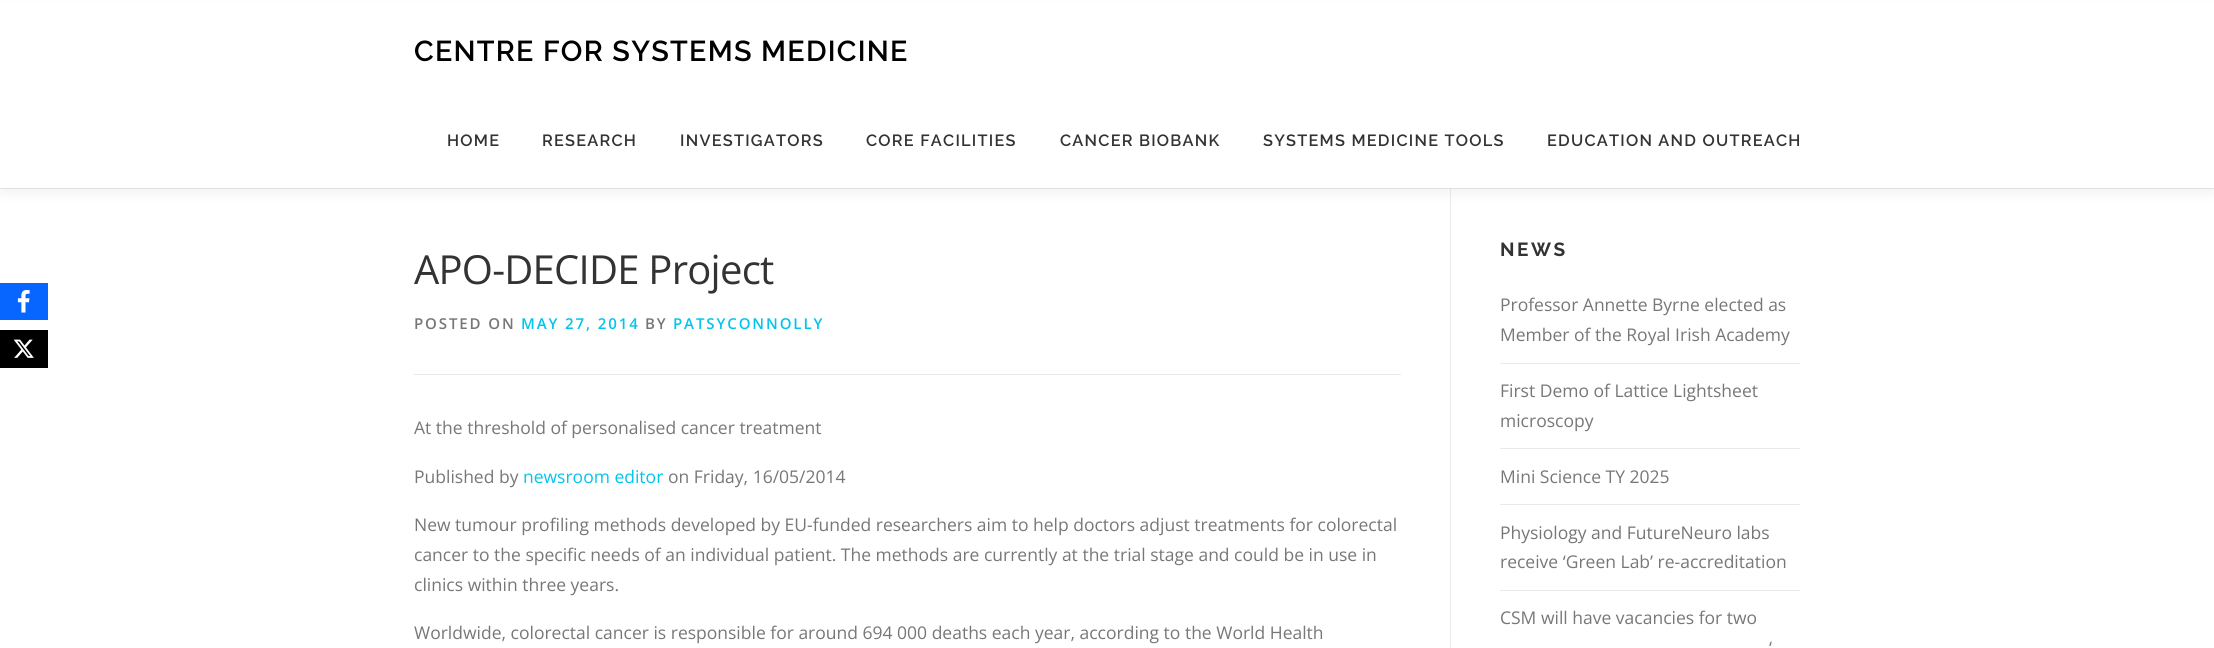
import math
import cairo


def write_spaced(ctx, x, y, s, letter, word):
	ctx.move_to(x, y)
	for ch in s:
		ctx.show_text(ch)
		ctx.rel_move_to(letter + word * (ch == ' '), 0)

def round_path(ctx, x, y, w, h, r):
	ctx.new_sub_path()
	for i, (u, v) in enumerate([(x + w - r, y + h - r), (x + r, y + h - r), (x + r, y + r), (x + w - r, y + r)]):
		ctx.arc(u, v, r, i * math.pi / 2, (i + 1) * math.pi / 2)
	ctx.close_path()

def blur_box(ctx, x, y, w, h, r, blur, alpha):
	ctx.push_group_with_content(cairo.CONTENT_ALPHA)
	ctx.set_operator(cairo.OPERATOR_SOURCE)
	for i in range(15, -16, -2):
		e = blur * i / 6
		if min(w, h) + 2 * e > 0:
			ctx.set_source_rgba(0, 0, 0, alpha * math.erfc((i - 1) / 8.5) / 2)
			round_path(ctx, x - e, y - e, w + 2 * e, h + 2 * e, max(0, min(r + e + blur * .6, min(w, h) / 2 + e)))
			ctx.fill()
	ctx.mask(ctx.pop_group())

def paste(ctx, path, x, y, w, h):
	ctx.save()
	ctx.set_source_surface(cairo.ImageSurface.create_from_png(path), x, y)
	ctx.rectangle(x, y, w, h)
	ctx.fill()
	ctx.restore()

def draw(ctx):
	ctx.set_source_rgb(1, 1, 1)
	ctx.paint()
	ctx.set_source_rgb(0.031, 0.4, 1)
	ctx.rectangle(0, 283, 48, 37)
	ctx.fill()
	paste(ctx, 'media/1.png', 17, 290, 13, 23)
	ctx.set_source_rgb(0, 0, 0)
	ctx.rectangle(0, 330, 48, 38)
	ctx.fill()
	paste(ctx, 'media/2.png', 13, 339, 21, 19)
	ctx.set_source_rgb(0.914, 0.914, 0.914)
	ctx.rectangle(0, 188, 2214, 1)
	ctx.fill()
	ctx.rectangle(1450, 189, 1, 459)
	ctx.fill()
	ctx.set_source_rgb(0.196, 0.196, 0.196)
	blur_box(ctx, 0, 6, 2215, 188, 0, 6, 0.06)
	ctx.set_source_rgb(1, 1, 1)
	ctx.rectangle(0, 1, 2214, 187)
	ctx.fill()
	ctx.select_font_face('Raleway SemiBold')
	ctx.set_font_size(28.75)
	ctx.set_source_rgb(0, 0, 0)
	write_spaced(ctx, 414, 61, 'CENTRE FOR SYSTEMS MEDICINE', 1.25, 0)
	ctx.set_font_size(16.25)
	ctx.set_source_rgb(0.2, 0.2, 0.2)
	for x, y, s in [
		(447, 146, 'HOME'),
		(542, 146, 'RESEARCH'),
		(680, 146, 'INVESTIGATORS'),
		(866, 146, 'CORE FACILITIES'),
		(1060, 146, 'CANCER BIOBANK'),
		(1263, 146, 'SYSTEMS MEDICINE TOOLS'),
		(1547, 146, 'EDUCATION AND OUTREACH'),
	]:
		write_spaced(ctx, x, y, s, 1.25, 0)
	ctx.select_font_face('Open Sans')
	ctx.set_font_size(40)
	write_spaced(ctx, 414, 284, 'APO-DECIDE Project', -0.75, 0)
	ctx.set_source_rgb(0.914, 0.914, 0.914)
	ctx.rectangle(414, 374, 987, 1)
	ctx.fill()
	ctx.select_font_face('Open Sans SemiBold')
	ctx.set_font_size(15)
	ctx.set_source_rgb(0.467, 0.467, 0.467)
	write_spaced(ctx, 414, 329, 'POSTED ON', 1.9, 0)
	ctx.set_source_rgb(0.012, 0.769, 0.922)
	write_spaced(ctx, 521, 329, 'MAY 27, 2014', 1.9, 0)
	ctx.set_source_rgb(0.467, 0.467, 0.467)
	write_spaced(ctx, 645, 329, 'BY', 1.9, 0)
	ctx.set_source_rgb(0.012, 0.769, 0.922)
	write_spaced(ctx, 673, 329, 'PATSYCONNOLLY', 1.9, 0)
	ctx.select_font_face('Open Sans')
	ctx.set_font_size(17.5)
	ctx.set_source_rgb(0.467, 0.467, 0.467)
	ctx.move_to(414, 434)
	ctx.show_text('At the threshold of personalised cancer treatment')
	ctx.move_to(414, 483)
	ctx.show_text('Published by')
	ctx.set_source_rgb(0.012, 0.769, 0.922)
	ctx.move_to(523, 483)
	ctx.show_text('newsroom editor')
	ctx.set_source_rgb(0.467, 0.467, 0.467)
	for x, y, s in [
		(668, 483, 'on Friday, 16/05/2014'),
		(414, 531, 'New tumour profiling methods developed by EU-funded researchers aim to help doctors adjust treatments for colorectal'),
		(414, 561, 'cancer to the specific needs of an individual patient. The methods are currently at the trial stage and could be in use in'),
		(414, 591, 'clinics within three years.'),
		(414, 639, 'Worldwide, colorectal cancer is responsible for around 694 000 deaths each year, according to the World Health'),
	]:
		ctx.move_to(x, y)
		ctx.show_text(s)
	ctx.select_font_face('Raleway', cairo.FONT_SLANT_NORMAL, cairo.FONT_WEIGHT_BOLD)
	ctx.set_font_size(19)
	ctx.set_source_rgb(0.2, 0.2, 0.2)
	write_spaced(ctx, 1500, 256, 'NEWS', 2.5, 0)
	ctx.set_source_rgb(0.914, 0.914, 0.914)
	ctx.rectangle(1500, 363, 300, 1)
	ctx.fill()
	ctx.select_font_face('Open Sans')
	ctx.set_font_size(17.5)
	ctx.set_source_rgb(0.467, 0.467, 0.467)
	ctx.move_to(1500, 311)
	ctx.show_text('Professor Annette Byrne elected as')
	ctx.move_to(1500, 341)
	ctx.show_text('Member of the Royal Irish Academy')
	ctx.set_source_rgb(0.914, 0.914, 0.914)
	ctx.rectangle(1500, 448, 300, 1)
	ctx.fill()
	ctx.set_source_rgb(0.467, 0.467, 0.467)
	ctx.move_to(1500, 397)
	ctx.show_text('First Demo of Lattice Lightsheet')
	ctx.move_to(1500, 427)
	ctx.show_text('microscopy')
	ctx.set_source_rgb(0.914, 0.914, 0.914)
	ctx.rectangle(1500, 504, 300, 1)
	ctx.fill()
	ctx.set_source_rgb(0.467, 0.467, 0.467)
	ctx.move_to(1500, 483)
	ctx.show_text('Mini Science TY 2025')
	ctx.set_source_rgb(0.914, 0.914, 0.914)
	ctx.rectangle(1500, 590, 300, 1)
	ctx.fill()
	ctx.set_source_rgb(0.467, 0.467, 0.467)
	for x, y, s in [
		(1500, 539, 'Physiology and FutureNeuro labs'),
		(1500, 568, 'receive ‘Green Lab’ re-accreditation'),
		(1500, 624, 'CSM will have vacancies for two'),
		(1769, 654, '‘'),
	]:
		ctx.move_to(x, y)
		ctx.show_text(s)


surface = cairo.ImageSurface(cairo.FORMAT_RGB24, 2214, 648)
ctx = cairo.Context(surface)
options = cairo.FontOptions()
options.set_hint_metrics(cairo.HINT_METRICS_OFF)
options.set_hint_style(cairo.HINT_STYLE_NONE)
ctx.set_font_options(options)
ctx.set_miter_limit(4)
draw(ctx)
surface.write_to_png('image.png')
